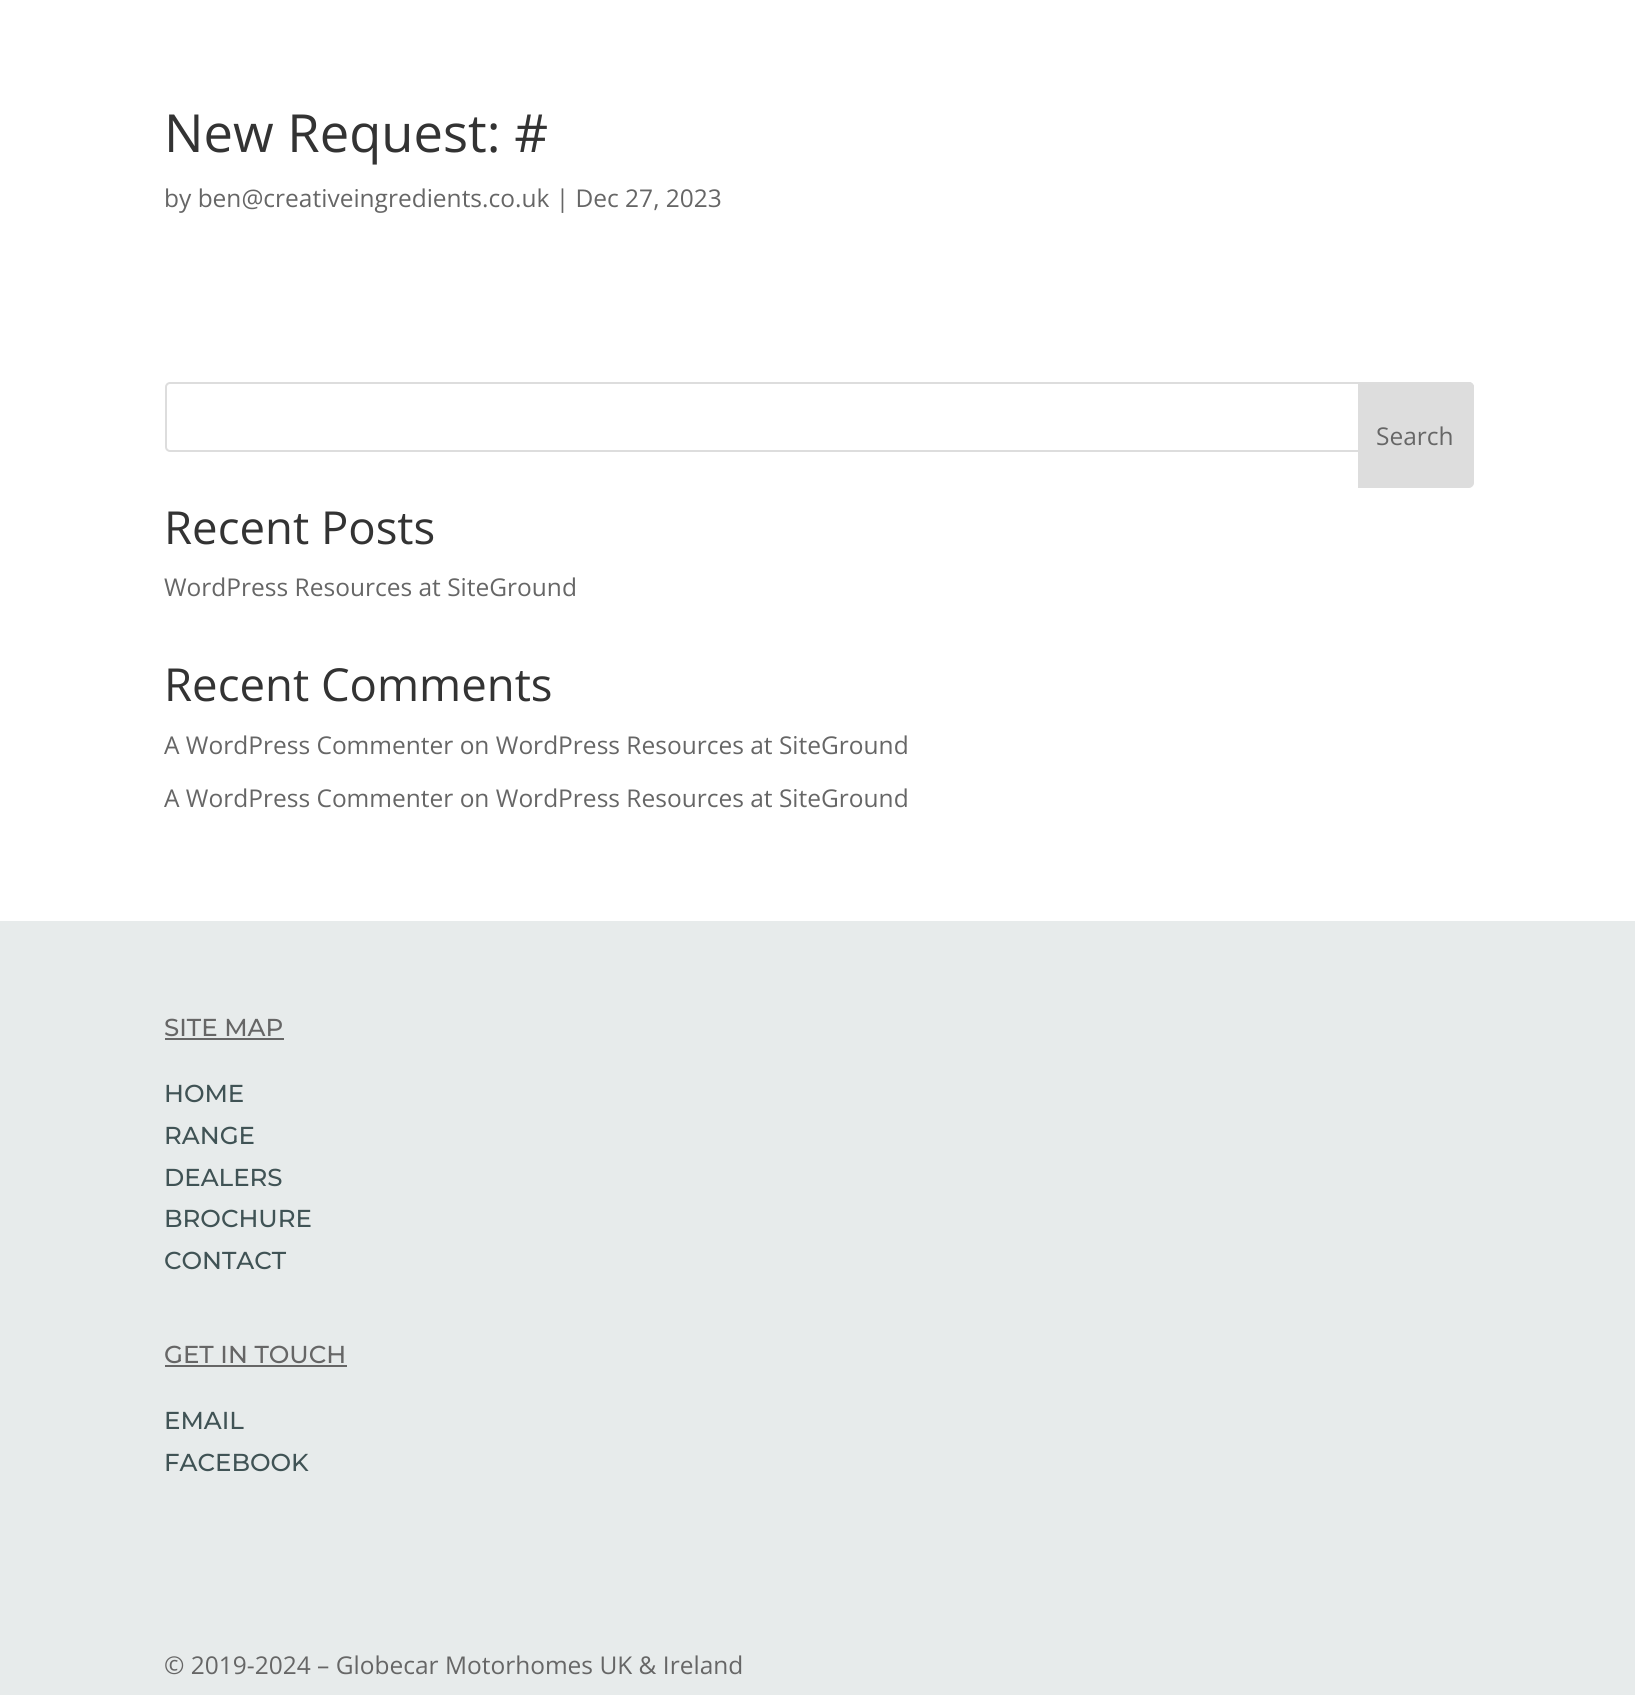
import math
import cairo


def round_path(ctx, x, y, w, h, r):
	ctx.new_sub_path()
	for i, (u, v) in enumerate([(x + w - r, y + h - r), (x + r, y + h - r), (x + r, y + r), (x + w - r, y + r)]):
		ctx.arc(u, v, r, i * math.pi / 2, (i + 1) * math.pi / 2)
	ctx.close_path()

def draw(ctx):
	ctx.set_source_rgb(1, 1, 1)
	ctx.paint()
	ctx.select_font_face('Open Sans')
	ctx.set_font_size(52.5)
	ctx.set_source_rgb(0.2, 0.2, 0.2)
	ctx.move_to(164, 152)
	ctx.show_text('New Request: #')
	ctx.set_font_size(24.5)
	ctx.set_source_rgb(0.4, 0.4, 0.4)
	ctx.move_to(164, 207)
	ctx.show_text('by ben@creativeingredients.co.uk | Dec 27, 2023')
	round_path(ctx, 166, 383, 1307, 68, 4)
	ctx.set_source_rgb(0.867, 0.867, 0.867)
	ctx.stroke()
	ctx.new_path()
	ctx.move_to(1359, 383)
	ctx.line_to(1469, 383)
	ctx.curve_to(1471, 383, 1473, 385, 1473, 387)
	ctx.line_to(1473, 483)
	ctx.curve_to(1473, 485, 1471, 487, 1469, 487)
	ctx.line_to(1359, 487)
	ctx.close_path()
	ctx.fill_preserve()
	ctx.stroke()
	ctx.set_source_rgb(0.4, 0.4, 0.4)
	ctx.move_to(1376, 445)
	ctx.show_text('Search')
	ctx.set_font_size(45.5)
	ctx.set_source_rgb(0.2, 0.2, 0.2)
	ctx.move_to(164, 544)
	ctx.show_text('Recent Posts')
	ctx.set_font_size(24.5)
	ctx.set_source_rgb(0.4, 0.4, 0.4)
	ctx.move_to(164, 596)
	ctx.show_text('WordPress Resources at SiteGround')
	ctx.set_font_size(45.5)
	ctx.set_source_rgb(0.2, 0.2, 0.2)
	ctx.move_to(164, 701)
	ctx.show_text('Recent Comments')
	ctx.set_font_size(24.5)
	ctx.set_source_rgb(0.4, 0.4, 0.4)
	ctx.move_to(164, 754)
	ctx.show_text('A WordPress Commenter on WordPress Resources at SiteGround')
	ctx.move_to(164, 807)
	ctx.show_text('A WordPress Commenter on WordPress Resources at SiteGround')
	ctx.set_source_rgb(0.906, 0.918, 0.918)
	ctx.rectangle(0, 921, 1635, 774)
	ctx.fill()
	ctx.select_font_face('Montserrat Thin')
	ctx.set_source_rgb(0.4, 0.4, 0.4)
	ctx.move_to(164, 1036)
	ctx.show_text('SITE MAP')
	ctx.rectangle(165, 1038, 119, 2)
	ctx.fill()
	ctx.set_source_rgb(0.251, 0.325, 0.333)
	for x, y, s in [
		(164, 1102, 'HOME'),
		(164, 1144, 'RANGE'),
		(164, 1186, 'DEALERS'),
		(164, 1227, 'BROCHURE'),
		(164, 1269, 'CONTACT'),
	]:
		ctx.move_to(x, y)
		ctx.show_text(s)
	ctx.set_source_rgb(0.4, 0.4, 0.4)
	ctx.move_to(164, 1363)
	ctx.show_text('GET IN TOUCH')
	ctx.rectangle(165, 1365, 182, 2)
	ctx.fill()
	ctx.set_source_rgb(0.251, 0.325, 0.333)
	ctx.move_to(164, 1429)
	ctx.show_text('EMAIL')
	ctx.move_to(164, 1471)
	ctx.show_text('FACEBOOK')
	ctx.select_font_face('Open Sans')
	ctx.set_source_rgb(0.4, 0.4, 0.4)
	ctx.move_to(164, 1674)
	ctx.show_text('© 2019-2024 – Globecar Motorhomes UK & Ireland')


surface = cairo.ImageSurface(cairo.FORMAT_RGB24, 1635, 1695)
ctx = cairo.Context(surface)
options = cairo.FontOptions()
options.set_hint_metrics(cairo.HINT_METRICS_OFF)
options.set_hint_style(cairo.HINT_STYLE_NONE)
ctx.set_font_options(options)
ctx.set_miter_limit(4)
draw(ctx)
surface.write_to_png('image.png')
